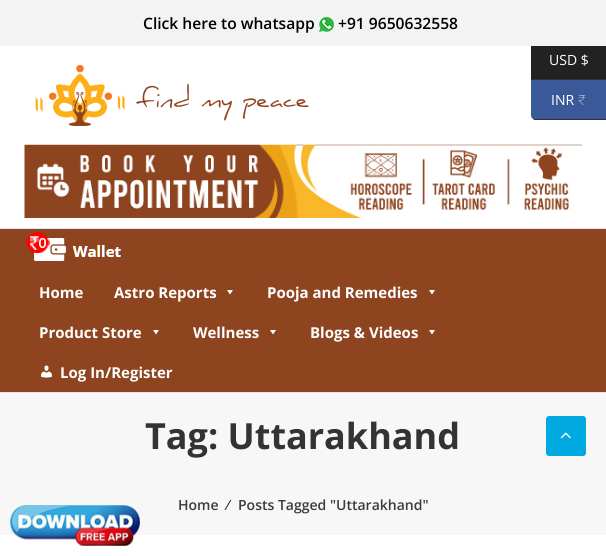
import math
import cairo


def round_path(ctx, x, y, w, h, r):
	ctx.new_sub_path()
	for i, (u, v) in enumerate([(x + w - r, y + h - r), (x + r, y + h - r), (x + r, y + r), (x + w - r, y + r)]):
		ctx.arc(u, v, r, i * math.pi / 2, (i + 1) * math.pi / 2)
	ctx.close_path()

def paste(ctx, path, x, y, w, h):
	ctx.save()
	ctx.set_source_surface(cairo.ImageSurface.create_from_png(path), x, y)
	ctx.rectangle(x, y, w, h)
	ctx.fill()
	ctx.restore()

def draw(ctx):
	ctx.set_source_rgb(1, 1, 1)
	ctx.paint()
	ctx.set_source_rgb(0.953, 0.953, 0.953)
	ctx.rectangle(0, 0, 606, 46)
	ctx.fill()
	ctx.select_font_face('Open Sans SemiBold')
	ctx.set_font_size(15.6)
	ctx.set_source_rgb(0, 0, 0)
	ctx.move_to(143, 29)
	ctx.show_text('Click here to whatsapp')
	paste(ctx, 'media/1.png', 319, 17, 15, 15)
	ctx.move_to(338, 29)
	ctx.show_text('+91 9650632558')
	paste(ctx, 'media/2.png', 35, 65, 274, 61)
	paste(ctx, 'media/3.png', 24, 144, 558, 74)
	ctx.set_source_rgb(0.557, 0.267, 0.122)
	ctx.rectangle(0, 229, 606, 163)
	ctx.fill()
	ctx.set_source_rgb(0.898, 0.898, 0.898)
	ctx.rectangle(0, 228, 606, 1)
	ctx.rectangle(0, 392, 606, 1)
	ctx.fill()
	paste(ctx, 'media/4.png', 26, 232, 95, 29)
	ctx.select_font_face('Open Sans', cairo.FONT_SLANT_NORMAL, cairo.FONT_WEIGHT_BOLD)
	ctx.set_font_size(15)
	ctx.set_source_rgb(1, 1, 1)
	ctx.move_to(39, 298)
	ctx.show_text('Home')
	ctx.move_to(114, 298)
	ctx.show_text('Astro Reports')
	ctx.new_path()
	ctx.move_to(233, 290)
	ctx.line_to(230, 294.5)
	ctx.line_to(227, 290)
	ctx.close_path()
	ctx.fill()
	ctx.move_to(267, 298)
	ctx.show_text('Pooja and Remedies')
	ctx.new_path()
	ctx.move_to(435, 290)
	ctx.line_to(432, 294.5)
	ctx.line_to(429, 290)
	ctx.close_path()
	ctx.fill()
	ctx.move_to(39, 338)
	ctx.show_text('Product Store')
	ctx.new_path()
	ctx.move_to(159, 330)
	ctx.line_to(156, 334.5)
	ctx.line_to(153, 330)
	ctx.close_path()
	ctx.fill()
	ctx.move_to(193, 338)
	ctx.show_text('Wellness')
	ctx.new_path()
	ctx.move_to(276, 330)
	ctx.line_to(273, 334.5)
	ctx.line_to(270, 330)
	ctx.close_path()
	ctx.fill()
	ctx.move_to(310, 338)
	ctx.show_text('Blogs & Videos')
	ctx.new_path()
	ctx.move_to(435, 330)
	ctx.line_to(432, 334.5)
	ctx.line_to(429, 330)
	ctx.close_path()
	ctx.fill()
	paste(ctx, 'media/5.png', 41, 365, 11, 13)
	ctx.move_to(60, 378)
	ctx.show_text('Log In/Register')
	ctx.set_source_rgb(0.965, 0.965, 0.965)
	ctx.rectangle(0, 393, 606, 142)
	ctx.fill()
	ctx.set_font_size(36)
	ctx.set_source_rgb(0.2, 0.2, 0.2)
	ctx.move_to(145, 449)
	ctx.show_text('Tag: Uttarakhand')
	ctx.select_font_face('Open Sans SemiBold')
	ctx.set_font_size(14)
	ctx.set_source_rgb(0.231, 0.231, 0.231)
	for x, y, s in [
		(178, 510, 'Home'),
		(227, 510, '⁄'),
		(238, 510, 'Posts Tagged "Uttarakhand"'),
	]:
		ctx.move_to(x, y)
		ctx.show_text(s)
	ctx.set_source_rgb(0, 0.663, 0.878)
	round_path(ctx, 546, 416, 40, 40, 3)
	ctx.fill()
	paste(ctx, 'media/6.png', 560, 432, 11, 7)
	ctx.set_source_rgb(0.133, 0.133, 0.133)
	ctx.rectangle(531, 46, 75, 33)
	ctx.fill()
	ctx.set_source_rgb(0.2, 0.2, 0.2)
	ctx.rectangle(531, 79, 75, 1)
	ctx.fill()
	ctx.select_font_face('Open Sans')
	ctx.set_source_rgb(1, 1, 1)
	ctx.move_to(549, 65)
	ctx.show_text('USD $')
	ctx.set_source_rgb(0.231, 0.349, 0.596)
	ctx.new_path()
	ctx.move_to(531, 80)
	ctx.line_to(606, 80)
	ctx.line_to(606, 120)
	ctx.line_to(536, 120)
	ctx.curve_to(533, 120, 531, 118, 531, 115)
	ctx.close_path()
	ctx.fill()
	ctx.set_source_rgb(0.2, 0.2, 0.2)
	ctx.rectangle(534, 119, 72, 1)
	ctx.fill()
	ctx.set_source_rgb(1, 1, 1)
	ctx.move_to(551, 105)
	ctx.show_text('INR')
	ctx.select_font_face('Noto Sans Thin')
	ctx.move_to(578, 105)
	ctx.show_text('₹')
	paste(ctx, 'media/7.png', 10, 505, 130, 41)


surface = cairo.ImageSurface(cairo.FORMAT_RGB24, 606, 556)
ctx = cairo.Context(surface)
options = cairo.FontOptions()
options.set_hint_metrics(cairo.HINT_METRICS_OFF)
options.set_hint_style(cairo.HINT_STYLE_NONE)
ctx.set_font_options(options)
ctx.set_miter_limit(4)
draw(ctx)
surface.write_to_png('image.png')
